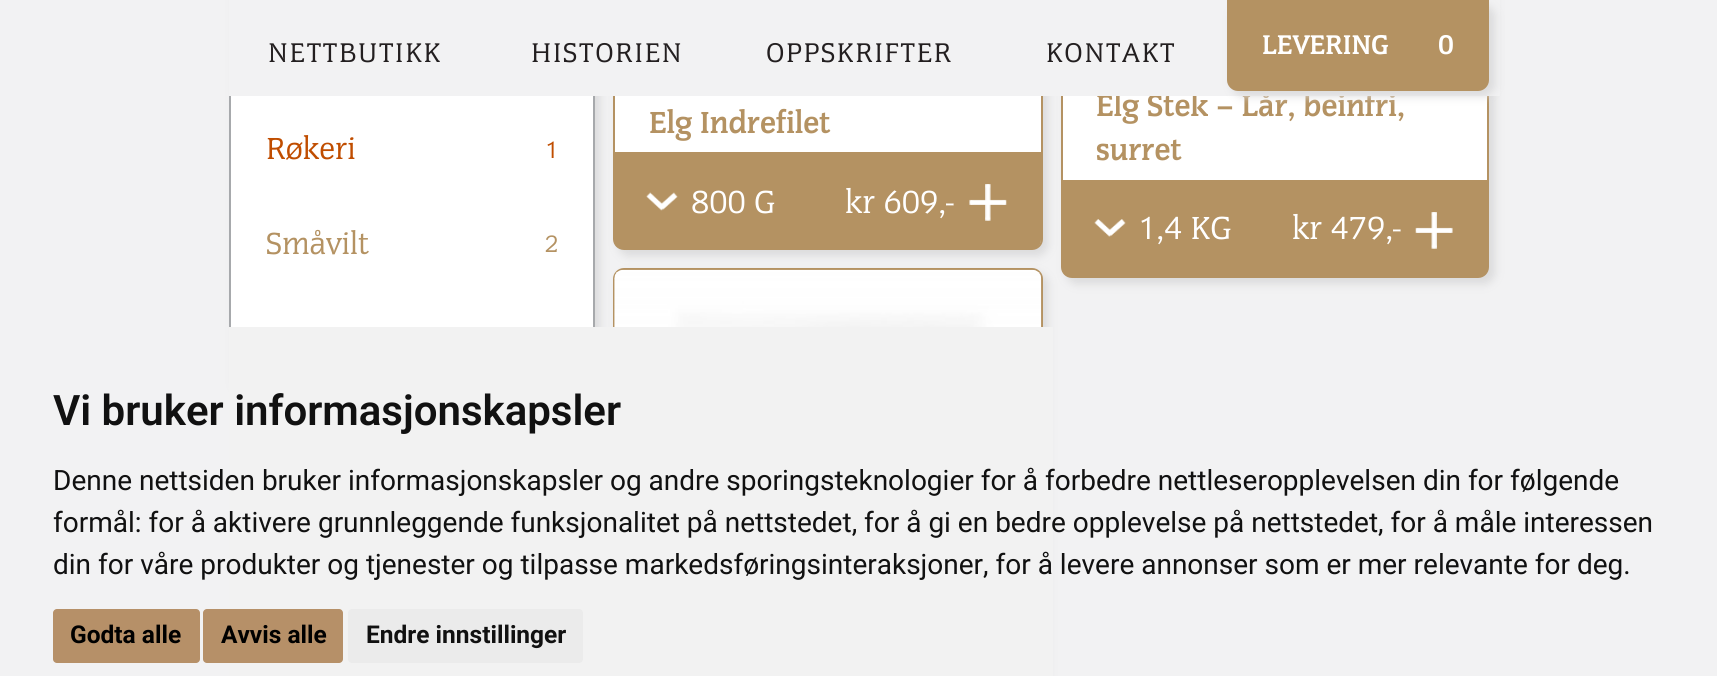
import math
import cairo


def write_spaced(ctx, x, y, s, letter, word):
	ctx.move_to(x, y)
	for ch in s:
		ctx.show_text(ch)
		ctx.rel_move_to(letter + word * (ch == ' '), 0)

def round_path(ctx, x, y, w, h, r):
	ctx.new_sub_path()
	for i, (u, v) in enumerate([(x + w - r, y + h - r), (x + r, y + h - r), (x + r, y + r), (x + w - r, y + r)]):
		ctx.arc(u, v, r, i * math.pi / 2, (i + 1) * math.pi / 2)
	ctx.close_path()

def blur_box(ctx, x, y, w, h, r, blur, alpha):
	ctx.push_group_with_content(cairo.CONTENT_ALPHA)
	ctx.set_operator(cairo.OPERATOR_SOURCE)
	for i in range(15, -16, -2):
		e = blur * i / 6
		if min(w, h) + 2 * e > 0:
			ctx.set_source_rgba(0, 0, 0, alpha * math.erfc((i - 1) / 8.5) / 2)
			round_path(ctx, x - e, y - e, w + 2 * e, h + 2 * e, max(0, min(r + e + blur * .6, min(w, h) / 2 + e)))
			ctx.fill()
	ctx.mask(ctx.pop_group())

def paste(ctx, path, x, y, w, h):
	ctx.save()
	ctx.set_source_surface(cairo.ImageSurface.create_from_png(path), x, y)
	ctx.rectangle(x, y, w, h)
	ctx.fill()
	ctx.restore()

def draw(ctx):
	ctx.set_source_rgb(0.949, 0.949, 0.953)
	ctx.paint()
	ctx.set_source_rgb(0.859, 0.859, 0.863)
	blur_box(ctx, 235, -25, 365, 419, 11, 4.5, 1)
	ctx.set_source_rgb(1, 1, 1)
	ctx.rectangle(231, 96, 362, 231)
	ctx.fill()
	ctx.rectangle(230, -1, 364, 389)
	ctx.set_source_rgb(0.655, 0.663, 0.675)
	ctx.stroke()
	ctx.set_source_rgb(0.859, 0.859, 0.863)
	blur_box(ctx, 618, -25, 430, 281, 11, 4.5, 1)
	ctx.set_source_rgb(1, 1, 1)
	round_path(ctx, 614, -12, 428, 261, 10)
	ctx.fill_preserve()
	ctx.set_source_rgb(0.706, 0.573, 0.384)
	ctx.stroke()
	ctx.set_source_rgb(0.859, 0.859, 0.863)
	blur_box(ctx, 1066, -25, 429, 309, 11, 4.5, 1)
	blur_box(ctx, 618, 273, 430, 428, 11, 4.5, 1)
	ctx.set_source_rgb(1, 1, 1)
	round_path(ctx, 1062, -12, 426, 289, 10)
	ctx.fill_preserve()
	ctx.set_source_rgb(0.706, 0.573, 0.384)
	ctx.stroke()
	ctx.select_font_face('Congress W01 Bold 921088', cairo.FONT_SLANT_NORMAL, cairo.FONT_WEIGHT_BOLD)
	ctx.set_font_size(31.5)
	ctx.move_to(1096, 116)
	ctx.show_text('Elg Stek – Lår, beinfri,')
	ctx.set_source_rgb(0.949, 0.949, 0.953)
	ctx.rectangle(229, 0, 1271, 96)
	ctx.fill()
	ctx.select_font_face('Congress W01')
	ctx.set_font_size(28)
	ctx.set_source_rgb(0.137, 0.122, 0.125)
	for x, y, s in [
		(268, 62, 'NETTBUTIKK'),
		(531, 62, 'HISTORIEN'),
		(766, 62, 'OPPSKRIFTER'),
		(1046, 62, 'KONTAKT'),
	]:
		write_spaced(ctx, x, y, s, 1.75, 0)
	ctx.set_source_rgb(0.859, 0.859, 0.863)
	blur_box(ctx, 1232, 5, 263, 91, 11, 4.5, 1)
	ctx.set_source_rgb(0.706, 0.573, 0.384)
	ctx.new_path()
	ctx.move_to(1227, 0)
	ctx.line_to(1489, 0)
	ctx.line_to(1489, 80)
	ctx.curve_to(1489, 86, 1484, 91, 1478, 91)
	ctx.line_to(1238, 91)
	ctx.curve_to(1232, 91, 1227, 86, 1227, 80)
	ctx.close_path()
	ctx.fill()
	ctx.select_font_face('Congress W01 Bold 921088', cairo.FONT_SLANT_NORMAL, cairo.FONT_WEIGHT_BOLD)
	ctx.set_source_rgb(1, 1, 1)
	ctx.move_to(1262, 54)
	ctx.show_text('LEVERING')
	ctx.move_to(1438, 54)
	ctx.show_text('0')
	ctx.select_font_face('Congress W01')
	ctx.set_font_size(31.5)
	ctx.set_source_rgb(0.753, 0.302, 0)
	ctx.move_to(266, 159)
	ctx.show_text('Røkeri')
	ctx.set_font_size(24.5)
	ctx.move_to(545, 158)
	ctx.show_text('1')
	ctx.set_font_size(31.5)
	ctx.set_source_rgb(0.706, 0.573, 0.384)
	ctx.move_to(266, 254)
	ctx.show_text('Småvilt')
	ctx.set_font_size(24.5)
	ctx.move_to(545, 252)
	ctx.show_text('2')
	ctx.select_font_face('Congress W01 Bold 921088', cairo.FONT_SLANT_NORMAL, cairo.FONT_WEIGHT_BOLD)
	ctx.set_font_size(31.5)
	ctx.move_to(649, 133)
	ctx.show_text('Elg Indrefilet')
	ctx.new_path()
	ctx.move_to(614, 152)
	ctx.line_to(1041, 152)
	ctx.line_to(1041, 240)
	ctx.curve_to(1041, 245, 1037, 249, 1032, 249)
	ctx.line_to(623, 249)
	ctx.curve_to(618, 249, 614, 245, 614, 240)
	ctx.close_path()
	ctx.fill()
	paste(ctx, 'media/1.png', 646, 192, 32, 19)
	ctx.select_font_face('Congress W01')
	ctx.set_font_size(33)
	ctx.set_source_rgb(1, 1, 1)
	ctx.move_to(691, 213)
	ctx.show_text('800 G')
	ctx.move_to(845, 213)
	ctx.show_text('kr 609,-')
	paste(ctx, 'media/2.png', 969, 184, 38, 37)
	round_path(ctx, 614, 269, 428, 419, 10)
	ctx.set_source_rgb(0.706, 0.573, 0.384)
	ctx.stroke()
	paste(ctx, 'media/3.png', 614, 269, 428, 58)
	ctx.select_font_face('Congress W01 Bold 921088', cairo.FONT_SLANT_NORMAL, cairo.FONT_WEIGHT_BOLD)
	ctx.set_font_size(31.5)
	ctx.move_to(1096, 160)
	ctx.show_text('surret')
	ctx.new_path()
	ctx.move_to(1062, 180)
	ctx.line_to(1488, 180)
	ctx.line_to(1488, 268)
	ctx.curve_to(1488, 273, 1484, 277, 1479, 277)
	ctx.line_to(1071, 277)
	ctx.curve_to(1066, 277, 1062, 273, 1062, 268)
	ctx.close_path()
	ctx.fill()
	paste(ctx, 'media/4.png', 1094, 219, 32, 18)
	ctx.select_font_face('Congress W01')
	ctx.set_font_size(33)
	ctx.set_source_rgb(1, 1, 1)
	ctx.move_to(1138, 239)
	ctx.show_text('1,4 KG')
	ctx.move_to(1292, 239)
	ctx.show_text('kr 479,-')
	paste(ctx, 'media/5.png', 1415, 212, 38, 37)
	ctx.set_source_rgb(0.949, 0.949, 0.949)
	ctx.rectangle(229, 327, 824, 349)
	ctx.fill()
	ctx.select_font_face('Roboto SemiBold')
	ctx.set_font_size(42)
	ctx.set_source_rgb(0.067, 0.067, 0.067)
	ctx.move_to(53, 425)
	ctx.show_text('Vi bruker informasjonskapsler')
	ctx.select_font_face('Roboto')
	ctx.set_font_size(28)
	for x, y, s in [
		(53, 490, 'Denne nettsiden bruker informasjonskapsler og andre sporingsteknologier for å forbedre nettleseropplevelsen din for følgende'),
		(53, 532, 'formål: for å aktivere grunnleggende funksjonalitet på nettstedet, for å gi en bedre opplevelse på nettstedet, for å måle interessen'),
		(53, 574, 'din for våre produkter og tjenester og tilpasse markedsføringsinteraksjoner, for å levere annonser som er mer relevante for deg.'),
	]:
		ctx.move_to(x, y)
		ctx.show_text(s)
	ctx.set_source_rgb(0.714, 0.565, 0.408)
	round_path(ctx, 53, 609, 147, 54, 4)
	ctx.fill()
	ctx.select_font_face('Roboto', cairo.FONT_SLANT_NORMAL, cairo.FONT_WEIGHT_BOLD)
	ctx.set_font_size(24.5)
	ctx.set_source_rgb(0, 0, 0)
	ctx.move_to(70, 643)
	ctx.show_text('Godta alle')
	ctx.set_source_rgb(0.714, 0.565, 0.408)
	round_path(ctx, 203, 609, 140, 54, 4)
	ctx.fill()
	ctx.set_source_rgb(0, 0, 0)
	ctx.move_to(221, 643)
	ctx.show_text('Avvis alle')
	ctx.set_source_rgb(0.918, 0.918, 0.918)
	round_path(ctx, 348, 609, 235, 54, 4)
	ctx.fill()
	ctx.set_source_rgb(0.067, 0.067, 0.067)
	ctx.move_to(366, 643)
	ctx.show_text('Endre innstillinger')


surface = cairo.ImageSurface(cairo.FORMAT_RGB24, 1717, 676)
ctx = cairo.Context(surface)
options = cairo.FontOptions()
options.set_hint_metrics(cairo.HINT_METRICS_OFF)
options.set_hint_style(cairo.HINT_STYLE_NONE)
ctx.set_font_options(options)
ctx.set_miter_limit(4)
draw(ctx)
surface.write_to_png('image.png')
